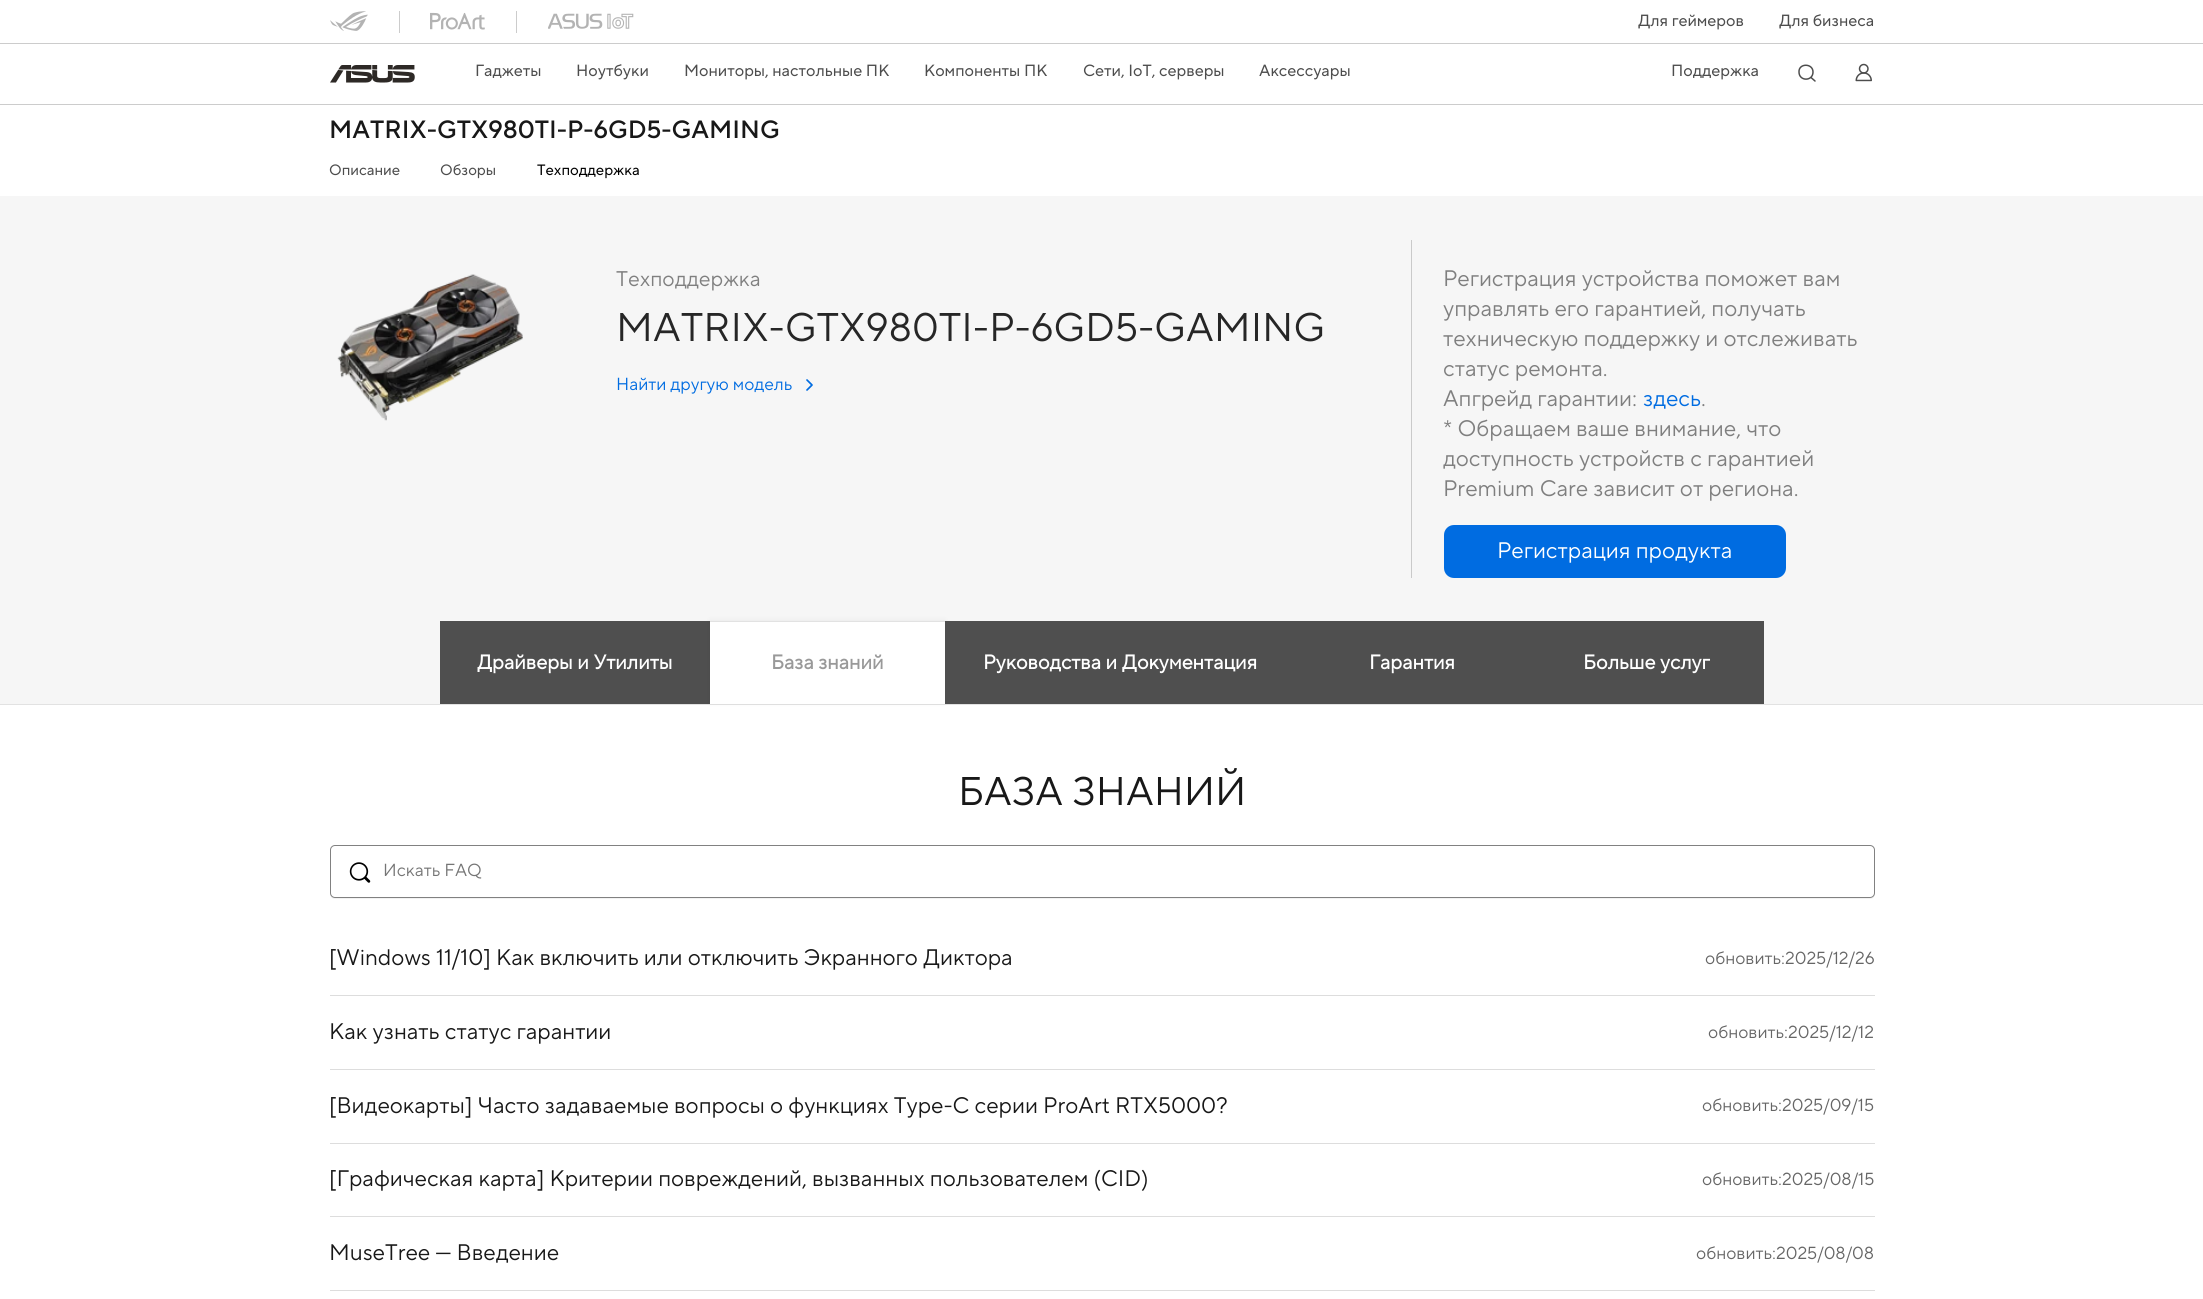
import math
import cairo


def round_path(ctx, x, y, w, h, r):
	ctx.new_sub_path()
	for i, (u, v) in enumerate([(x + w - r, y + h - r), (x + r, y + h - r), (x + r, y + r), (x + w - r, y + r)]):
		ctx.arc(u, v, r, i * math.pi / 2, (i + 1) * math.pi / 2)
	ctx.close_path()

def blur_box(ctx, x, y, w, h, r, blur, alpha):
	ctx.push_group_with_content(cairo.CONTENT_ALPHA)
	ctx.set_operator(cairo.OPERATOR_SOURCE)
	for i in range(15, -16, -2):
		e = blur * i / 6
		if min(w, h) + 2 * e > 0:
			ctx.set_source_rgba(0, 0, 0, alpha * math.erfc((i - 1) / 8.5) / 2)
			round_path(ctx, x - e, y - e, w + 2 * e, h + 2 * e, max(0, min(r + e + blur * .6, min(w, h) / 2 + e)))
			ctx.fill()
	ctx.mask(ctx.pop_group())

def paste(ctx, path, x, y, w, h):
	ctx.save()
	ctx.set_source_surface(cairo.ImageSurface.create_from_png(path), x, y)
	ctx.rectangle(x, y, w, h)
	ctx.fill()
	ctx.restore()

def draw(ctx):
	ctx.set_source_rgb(1, 1, 1)
	ctx.paint()
	ctx.set_source_rgb(0.8, 0.8, 0.8)
	ctx.rectangle(0, 104, 2203, 1)
	ctx.fill()
	ctx.rectangle(399, 11, 1, 22)
	ctx.fill()
	paste(ctx, 'media/1.png', 330, 11, 38, 20)
	ctx.rectangle(516, 11, 1, 22)
	ctx.fill()
	paste(ctx, 'media/2.png', 430, 12, 55, 18)
	paste(ctx, 'media/3.png', 548, 13, 86, 16)
	ctx.select_font_face('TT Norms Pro')
	ctx.set_font_size(16.25)
	ctx.set_source_rgb(0.302, 0.302, 0.302)
	ctx.move_to(1638, 26)
	ctx.show_text('Для геймеров')
	ctx.move_to(1779, 26)
	ctx.show_text('Для бизнеса')
	ctx.set_source_rgb(0.8, 0.8, 0.8)
	ctx.rectangle(0, 43, 2203, 1)
	ctx.fill()
	paste(ctx, 'media/4.png', 330, 65, 85, 18)
	ctx.set_source_rgb(0.302, 0.302, 0.302)
	for x, y, s in [
		(475, 76, 'Гаджеты'),
		(576, 76, 'Ноутбуки'),
		(684, 76, 'Мониторы, настольные ПК'),
		(924, 76, 'Компоненты ПК'),
		(1083, 76, 'Сети, IoT, серверы'),
		(1259, 76, 'Аксессуары'),
		(1671, 76, 'Поддержка'),
	]:
		ctx.move_to(x, y)
		ctx.show_text(s)
	ctx.new_path()
	ctx.move_to(1811, 77.5)
	ctx.line_to(1815, 81)
	ctx.move_to(1813, 72)
	ctx.curve_to(1813, 81.5, 1799, 81.5, 1799, 72)
	ctx.curve_to(1798.5, 63, 1813, 63, 1813, 72)
	ctx.close_path()
	ctx.set_line_width(1.5)
	ctx.set_line_cap(cairo.LINE_CAP_ROUND)
	ctx.stroke()
	paste(ctx, 'media/5.png', 1855, 63, 17, 19)
	ctx.select_font_face('TT Norms Pro Medium')
	ctx.set_font_size(25)
	ctx.set_source_rgb(0.094, 0.094, 0.094)
	ctx.move_to(329, 138)
	ctx.show_text('MATRIX-GTX980TI-P-6GD5-GAMING')
	ctx.select_font_face('TT Norms Pro')
	ctx.set_font_size(15)
	ctx.set_source_rgb(0.302, 0.302, 0.302)
	ctx.move_to(329, 175)
	ctx.show_text('Описание')
	ctx.move_to(440, 175)
	ctx.show_text('Обзоры')
	ctx.set_source_rgb(0, 0, 0)
	ctx.move_to(537, 175)
	ctx.show_text('Техподдержка')
	ctx.set_source_rgb(0.961, 0.961, 0.961)
	ctx.rectangle(0, 196, 2203, 508)
	ctx.fill()
	paste(ctx, 'media/6.png', 337, 274, 186, 147)
	ctx.select_font_face('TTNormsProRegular')
	ctx.set_font_size(21.25)
	ctx.set_source_rgb(0.498, 0.498, 0.498)
	ctx.move_to(616, 286)
	ctx.show_text('Техподдержка')
	ctx.set_font_size(40)
	ctx.set_source_rgb(0.149, 0.149, 0.149)
	ctx.move_to(616, 341)
	ctx.show_text('MATRIX-GTX980TI-P-6GD5-GAMING')
	ctx.set_font_size(17.5)
	ctx.set_source_rgb(0, 0.424, 0.882)
	ctx.move_to(616, 390)
	ctx.show_text('Найти другую модель')
	ctx.new_path()
	ctx.move_to(807, 380)
	ctx.line_to(812, 385)
	ctx.line_to(807, 390)
	ctx.set_line_width(1.7)
	ctx.set_line_join(cairo.LINE_JOIN_ROUND)
	ctx.stroke()
	ctx.set_source_rgb(0.792, 0.792, 0.792)
	ctx.rectangle(1411, 240, 1, 338)
	ctx.fill()
	ctx.set_font_size(22.5)
	ctx.set_source_rgb(0.498, 0.498, 0.498)
	for x, y, s in [
		(1443, 286, 'Регистрация устройства поможет вам'),
		(1443, 316, 'управлять его гарантией, получать'),
		(1443, 346, 'техническую поддержку и отслеживать'),
		(1443, 376, 'статус ремонта.'),
		(1443, 406, 'Апгрейд гарантии:'),
	]:
		ctx.move_to(x, y)
		ctx.show_text(s)
	ctx.set_source_rgb(0, 0.424, 0.882)
	ctx.move_to(1643, 406)
	ctx.show_text('здесь')
	ctx.set_source_rgb(0.498, 0.498, 0.498)
	for x, y, s in [
		(1701, 406, '.'),
		(1443, 436, '* Обращаем ваше внимание, что'),
		(1443, 466, 'доступность устройств с гарантией'),
		(1443, 496, 'Premium Care зависит от региона.'),
	]:
		ctx.move_to(x, y)
		ctx.show_text(s)
	ctx.set_source_rgb(0, 0.424, 0.882)
	round_path(ctx, 1444, 525, 342, 53, 10)
	ctx.fill()
	ctx.set_source_rgb(1, 1, 1)
	ctx.move_to(1497, 558)
	ctx.show_text('Регистрация продукта')
	ctx.set_source_rgb(0.886, 0.886, 0.886)
	ctx.rectangle(0, 704, 2203, 1)
	ctx.fill()
	ctx.set_source_rgb(0.31, 0.31, 0.31)
	ctx.rectangle(440, 621, 270, 83)
	ctx.fill()
	ctx.select_font_face('TTNormsProRegular', cairo.FONT_SLANT_NORMAL, cairo.FONT_WEIGHT_BOLD)
	ctx.set_font_size(20)
	ctx.set_source_rgb(1, 1, 1)
	ctx.move_to(477, 669)
	ctx.show_text('Драйверы и Утилиты')
	ctx.set_source_rgb(0, 0, 0)
	blur_box(ctx, 710, 620, 235, 83, 0, 2.5, 0.05)
	ctx.set_source_rgb(1, 1, 1)
	ctx.rectangle(710, 622, 235, 82)
	ctx.fill()
	ctx.set_source_rgb(0.886, 0.886, 0.886)
	ctx.rectangle(710, 621, 235, 1)
	ctx.fill()
	ctx.set_source_rgb(0.6, 0.6, 0.6)
	ctx.move_to(771, 669)
	ctx.show_text('База знаний')
	ctx.set_source_rgb(0.31, 0.31, 0.31)
	ctx.rectangle(945, 621, 819, 83)
	ctx.fill()
	ctx.set_source_rgb(1, 1, 1)
	for x, y, s in [
		(983, 669, 'Руководства и Документация'),
		(1369, 669, 'Гарантия'),
		(1583, 669, 'Больше услуг'),
	]:
		ctx.move_to(x, y)
		ctx.show_text(s)
	ctx.select_font_face('TTNormsProRegular')
	ctx.set_font_size(40)
	ctx.set_source_rgb(0.094, 0.094, 0.094)
	ctx.move_to(958, 805)
	ctx.show_text('БАЗА ЗНАНИЙ')
	ctx.set_source_rgb(0.949, 0.949, 0.949)
	ctx.new_path()
	ctx.move_to(330, 892)
	ctx.curve_to(330, 896, 331, 899, 335, 899)
	ctx.line_to(1870, 899)
	ctx.curve_to(1874, 899, 1875, 896, 1875, 892)
	ctx.curve_to(1875, 895, 1873, 898, 1870, 898)
	ctx.line_to(335, 898)
	ctx.curve_to(332, 898, 330, 895, 330, 892)
	ctx.close_path()
	ctx.fill()
	ctx.set_source_rgb(1, 1, 1)
	round_path(ctx, 330.5, 845.5, 1544, 52, 4.5)
	ctx.fill_preserve()
	ctx.set_source_rgb(0.506, 0.506, 0.506)
	ctx.set_line_width(1)
	ctx.set_line_cap(cairo.LINE_CAP_BUTT)
	ctx.set_line_join(cairo.LINE_JOIN_MITER)
	ctx.stroke()
	paste(ctx, 'media/7.png', 349, 862, 22, 21)
	ctx.set_font_size(17.5)
	ctx.set_source_rgb(0.459, 0.459, 0.459)
	ctx.move_to(383, 876)
	ctx.show_text('Искать FAQ')
	ctx.set_source_rgb(0.867, 0.867, 0.867)
	ctx.rectangle(330, 995, 1545, 1)
	ctx.fill()
	ctx.set_font_size(22.5)
	ctx.set_source_rgb(0.094, 0.094, 0.094)
	ctx.move_to(329, 965)
	ctx.show_text('[Windows 11/10] Как включить или отключить Экранного Диктора')
	ctx.set_font_size(17.5)
	ctx.set_source_rgb(0.4, 0.4, 0.4)
	ctx.move_to(1705, 964)
	ctx.show_text('обновить:2025/12/26')
	ctx.set_source_rgb(0.867, 0.867, 0.867)
	ctx.rectangle(330, 1069, 1545, 1)
	ctx.fill()
	ctx.set_font_size(22.5)
	ctx.set_source_rgb(0.094, 0.094, 0.094)
	ctx.move_to(329, 1039)
	ctx.show_text('Как узнать статус гарантии')
	ctx.set_font_size(17.5)
	ctx.set_source_rgb(0.4, 0.4, 0.4)
	ctx.move_to(1708, 1038)
	ctx.show_text('обновить:2025/12/12')
	ctx.set_source_rgb(0.867, 0.867, 0.867)
	ctx.rectangle(330, 1143, 1545, 1)
	ctx.fill()
	ctx.set_font_size(22.5)
	ctx.set_source_rgb(0.094, 0.094, 0.094)
	ctx.move_to(329, 1113)
	ctx.show_text('[Видеокарты] Часто задаваемые вопросы о функциях Type-C серии ProArt RTX5000?')
	ctx.set_font_size(17.5)
	ctx.set_source_rgb(0.4, 0.4, 0.4)
	ctx.move_to(1702, 1111)
	ctx.show_text('обновить:2025/09/15')
	ctx.set_source_rgb(0.867, 0.867, 0.867)
	ctx.rectangle(330, 1216, 1545, 1)
	ctx.fill()
	ctx.set_font_size(22.5)
	ctx.set_source_rgb(0.094, 0.094, 0.094)
	ctx.move_to(329, 1186)
	ctx.show_text('[Графическая карта] Критерии повреждений, вызванных пользователем (CID)')
	ctx.set_font_size(17.5)
	ctx.set_source_rgb(0.4, 0.4, 0.4)
	ctx.move_to(1702, 1185)
	ctx.show_text('обновить:2025/08/15')
	ctx.set_source_rgb(0.867, 0.867, 0.867)
	ctx.rectangle(330, 1290, 1545, 1)
	ctx.fill()
	ctx.set_font_size(22.5)
	ctx.set_source_rgb(0.094, 0.094, 0.094)
	ctx.move_to(329, 1260)
	ctx.show_text('MuseTree — Введение')
	ctx.set_font_size(17.5)
	ctx.set_source_rgb(0.4, 0.4, 0.4)
	ctx.move_to(1696, 1259)
	ctx.show_text('обновить:2025/08/08')


surface = cairo.ImageSurface(cairo.FORMAT_RGB24, 2203, 1299)
ctx = cairo.Context(surface)
options = cairo.FontOptions()
options.set_hint_metrics(cairo.HINT_METRICS_OFF)
options.set_hint_style(cairo.HINT_STYLE_NONE)
ctx.set_font_options(options)
ctx.set_miter_limit(4)
draw(ctx)
surface.write_to_png('image.png')
